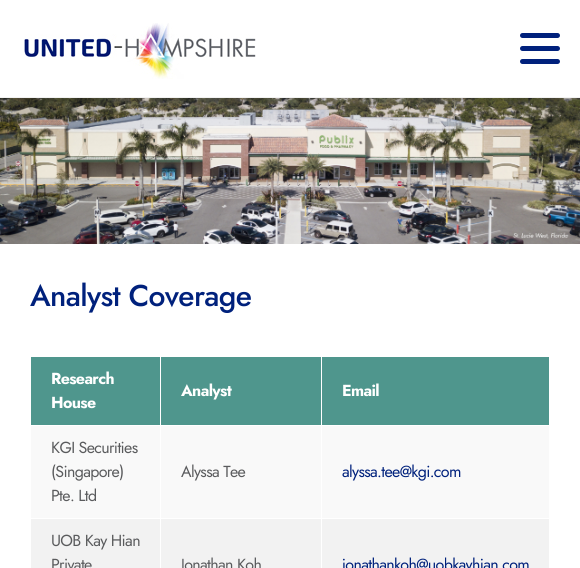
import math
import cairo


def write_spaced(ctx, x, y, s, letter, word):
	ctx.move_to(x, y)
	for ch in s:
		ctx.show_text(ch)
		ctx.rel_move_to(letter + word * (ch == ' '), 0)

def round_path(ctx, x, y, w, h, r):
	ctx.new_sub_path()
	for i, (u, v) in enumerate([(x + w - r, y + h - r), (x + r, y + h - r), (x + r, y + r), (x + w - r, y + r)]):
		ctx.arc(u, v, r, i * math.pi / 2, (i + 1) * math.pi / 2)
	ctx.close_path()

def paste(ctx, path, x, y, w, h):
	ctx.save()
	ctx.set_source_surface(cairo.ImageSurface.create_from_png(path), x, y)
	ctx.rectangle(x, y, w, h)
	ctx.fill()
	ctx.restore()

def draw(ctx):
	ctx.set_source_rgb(1, 1, 1)
	ctx.paint()
	ctx.set_source_rgb(0.949, 0.949, 0.949)
	ctx.rectangle(0, 97, 580, 1)
	ctx.fill()
	paste(ctx, 'media/1.png', 24, 23, 232, 56)
	ctx.set_source_rgb(0, 0.129, 0.486)
	round_path(ctx, 520, 33, 40, 5, 2.5)
	ctx.fill()
	round_path(ctx, 520, 46, 40, 5, 2.5)
	ctx.fill()
	round_path(ctx, 520, 59, 40, 5, 2.5)
	ctx.fill()
	paste(ctx, 'media/2.png', 0, 98, 580, 146)
	ctx.select_font_face('Jost Medium')
	ctx.set_font_size(30)
	write_spaced(ctx, 30, 306, 'Analyst Coverage', -0.65, 0)
	ctx.set_source_rgb(0.31, 0.588, 0.553)
	ctx.rectangle(31, 357, 129, 68)
	ctx.fill()
	ctx.select_font_face('Jost', cairo.FONT_SLANT_NORMAL, cairo.FONT_WEIGHT_BOLD)
	ctx.set_font_size(16)
	ctx.set_source_rgb(1, 1, 1)
	write_spaced(ctx, 51, 384, 'Research', -0.65, 0)
	write_spaced(ctx, 51, 408, 'House', -0.65, 0)
	ctx.set_source_rgb(0.31, 0.588, 0.553)
	ctx.rectangle(161, 357, 160, 68)
	ctx.fill()
	ctx.set_source_rgb(1, 1, 1)
	write_spaced(ctx, 181, 396, 'Analyst', -0.65, 0)
	ctx.set_source_rgb(0.31, 0.588, 0.553)
	ctx.rectangle(322, 357, 227, 68)
	ctx.fill()
	ctx.set_source_rgb(1, 1, 1)
	write_spaced(ctx, 342, 396, 'Email', -0.65, 0)
	ctx.set_source_rgb(0.976, 0.976, 0.976)
	ctx.rectangle(31, 426, 518, 92)
	ctx.fill()
	ctx.select_font_face('Jost')
	ctx.set_source_rgb(0.353, 0.357, 0.365)
	for x, y, s in [
		(51, 453, 'KGI Securities'),
		(51, 477, '(Singapore)'),
		(51, 501, 'Pte. Ltd'),
		(181, 477, 'Alyssa Tee'),
	]:
		write_spaced(ctx, x, y, s, -0.65, 0)
	ctx.set_source_rgb(0, 0.129, 0.486)
	write_spaced(ctx, 342, 477, 'alyssa.tee@kgi.com', -0.65, 0)
	ctx.set_source_rgb(0.949, 0.949, 0.949)
	ctx.rectangle(31, 519, 518, 49)
	ctx.fill()
	ctx.set_source_rgb(1, 1, 1)
	ctx.rectangle(160, 425, 1, 143)
	ctx.fill()
	ctx.set_source_rgb(0.353, 0.357, 0.365)
	write_spaced(ctx, 51, 546, 'UOB Kay Hian', -0.65, 0)
	write_spaced(ctx, 51, 570, 'Private', -0.65, 0)
	ctx.set_source_rgb(1, 1, 1)
	ctx.rectangle(321, 425, 1, 143)
	ctx.fill()
	ctx.set_source_rgb(0.353, 0.357, 0.365)
	write_spaced(ctx, 181, 570, 'Jonathan Koh', -0.65, 0)
	ctx.set_source_rgb(0, 0.129, 0.486)
	write_spaced(ctx, 342, 570, 'jonathankoh@uobkayhian.com', -0.65, 0)


surface = cairo.ImageSurface(cairo.FORMAT_RGB24, 580, 568)
ctx = cairo.Context(surface)
options = cairo.FontOptions()
options.set_hint_metrics(cairo.HINT_METRICS_OFF)
options.set_hint_style(cairo.HINT_STYLE_NONE)
ctx.set_font_options(options)
ctx.set_miter_limit(4)
draw(ctx)
surface.write_to_png('image.png')
